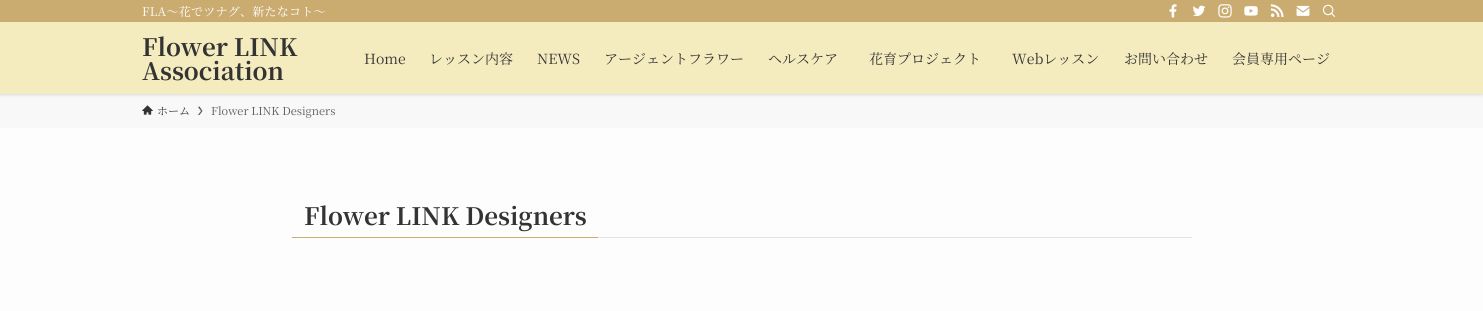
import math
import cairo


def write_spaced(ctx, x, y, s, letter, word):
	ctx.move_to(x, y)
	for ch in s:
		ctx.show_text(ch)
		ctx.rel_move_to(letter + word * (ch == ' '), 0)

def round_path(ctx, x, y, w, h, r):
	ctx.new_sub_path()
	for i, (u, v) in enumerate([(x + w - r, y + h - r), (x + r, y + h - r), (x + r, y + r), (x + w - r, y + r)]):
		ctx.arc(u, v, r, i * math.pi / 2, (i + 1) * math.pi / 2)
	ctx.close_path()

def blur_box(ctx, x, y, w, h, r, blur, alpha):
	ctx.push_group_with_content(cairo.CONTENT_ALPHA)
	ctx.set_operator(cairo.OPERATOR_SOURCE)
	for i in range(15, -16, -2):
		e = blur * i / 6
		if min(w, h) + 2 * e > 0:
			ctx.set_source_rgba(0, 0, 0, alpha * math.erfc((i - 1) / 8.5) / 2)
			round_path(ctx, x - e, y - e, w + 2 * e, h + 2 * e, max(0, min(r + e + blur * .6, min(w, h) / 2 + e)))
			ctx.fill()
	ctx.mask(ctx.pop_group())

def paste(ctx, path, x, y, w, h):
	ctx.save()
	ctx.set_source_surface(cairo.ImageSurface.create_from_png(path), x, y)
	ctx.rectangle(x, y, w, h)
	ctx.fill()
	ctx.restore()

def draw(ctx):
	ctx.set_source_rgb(0.992, 0.992, 0.992)
	ctx.paint()
	ctx.set_source_rgb(0.969, 0.969, 0.969)
	ctx.rectangle(0, 94, 1483, 34)
	ctx.fill()
	ctx.set_source_rgb(0, 0, 0)
	blur_box(ctx, 0, 1, 1483, 94, 0, 2, 0.12)
	ctx.set_source_rgb(0.957, 0.918, 0.745)
	ctx.rectangle(0, 22, 1483, 72)
	ctx.fill()
	ctx.set_source_rgb(0.792, 0.675, 0.443)
	ctx.rectangle(0, 0, 1483, 22)
	ctx.fill()
	ctx.select_font_face('Noto Serif JP')
	ctx.set_font_size(12)
	ctx.set_source_rgb(1, 1, 1)
	write_spaced(ctx, 142, 16, 'FLA〜花でツナグ、新たなコト〜', 0.25, 0)
	paste(ctx, 'media/1.png', 1169, 4, 8, 14)
	paste(ctx, 'media/2.png', 1193, 5, 13, 12)
	paste(ctx, 'media/3.png', 1218, 4, 14, 14)
	paste(ctx, 'media/4.png', 1244, 6, 14, 10)
	paste(ctx, 'media/5.png', 1270, 4, 14, 13)
	paste(ctx, 'media/6.png', 1296, 5, 14, 11)
	paste(ctx, 'media/7.png', 1322, 4, 14, 13)
	ctx.select_font_face('Noto Serif JP', cairo.FONT_SLANT_NORMAL, cairo.FONT_WEIGHT_BOLD)
	ctx.set_font_size(24)
	ctx.set_source_rgb(0.2, 0.2, 0.2)
	ctx.move_to(142, 56)
	ctx.show_text('Flower LINK')
	ctx.move_to(142, 80)
	ctx.show_text('Association')
	ctx.select_font_face('Noto Serif JP')
	ctx.set_font_size(14)
	for x, y, s in [
		(364, 64, 'Home'),
		(429, 64, 'レッスン内容'),
		(537, 64, 'NEWS'),
		(604, 64, 'アージェントフラワー'),
		(768, 64, 'ヘルスケア'),
		(869, 64, '花育プロジェクト'),
		(1012, 64, 'Webレッスン'),
		(1124, 64, 'お問い合わせ'),
		(1232, 64, '会員専用ページ'),
	]:
		ctx.move_to(x, y)
		ctx.show_text(s)
	paste(ctx, 'media/8.png', 142, 105, 11, 10)
	ctx.set_font_size(11)
	ctx.move_to(157, 115)
	ctx.show_text('ホーム')
	ctx.set_source_rgb(0.353, 0.353, 0.353)
	ctx.new_path()
	ctx.move_to(199.5, 106.5)
	ctx.line_to(198, 107)
	ctx.line_to(201, 111)
	ctx.line_to(198, 115)
	ctx.line_to(199.5, 115)
	ctx.line_to(202.5, 111)
	ctx.close_path()
	ctx.fill()
	ctx.move_to(211, 115)
	ctx.show_text('Flower LINK Designers')
	ctx.set_source_rgb(0.886, 0.886, 0.886)
	ctx.rectangle(598, 237, 594, 1)
	ctx.fill()
	ctx.set_source_rgb(0.792, 0.675, 0.443)
	ctx.rectangle(292, 237, 306, 1)
	ctx.fill()
	ctx.select_font_face('Noto Serif JP', cairo.FONT_SLANT_NORMAL, cairo.FONT_WEIGHT_BOLD)
	ctx.set_font_size(24)
	ctx.set_source_rgb(0.2, 0.2, 0.2)
	ctx.move_to(304, 225)
	ctx.show_text('Flower LINK Designers')


surface = cairo.ImageSurface(cairo.FORMAT_RGB24, 1483, 311)
ctx = cairo.Context(surface)
options = cairo.FontOptions()
options.set_hint_metrics(cairo.HINT_METRICS_OFF)
options.set_hint_style(cairo.HINT_STYLE_NONE)
ctx.set_font_options(options)
ctx.set_miter_limit(4)
draw(ctx)
surface.write_to_png('image.png')
